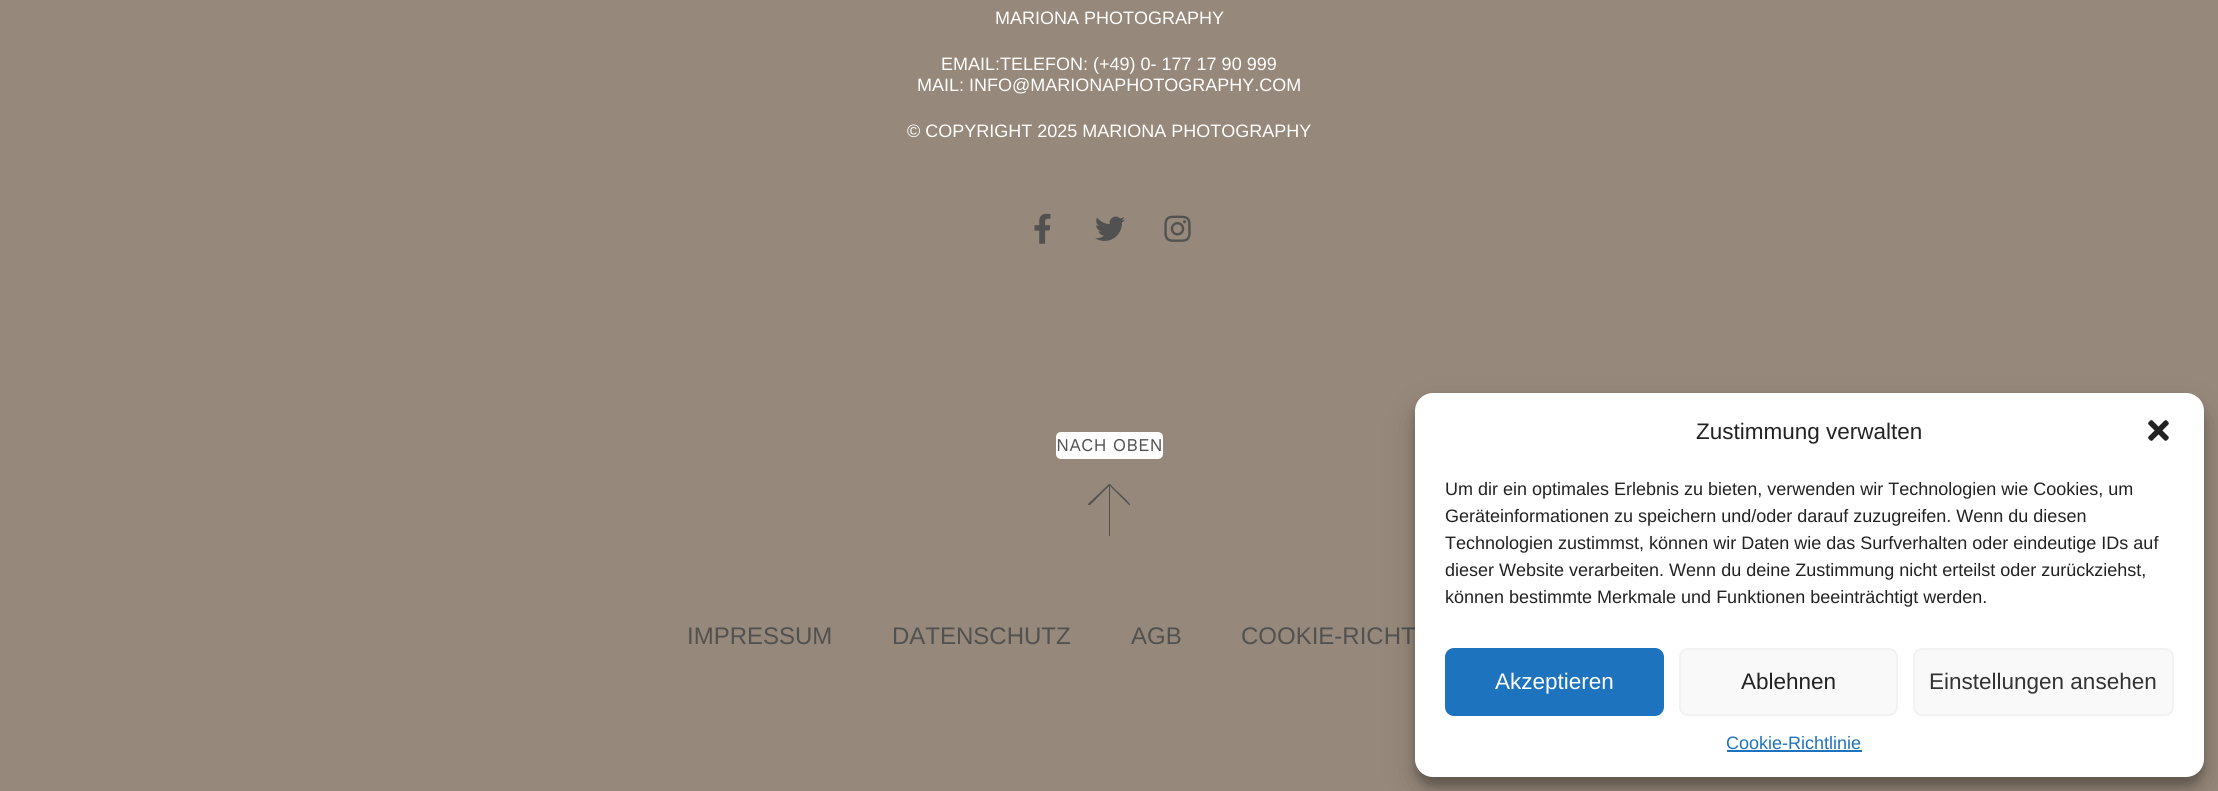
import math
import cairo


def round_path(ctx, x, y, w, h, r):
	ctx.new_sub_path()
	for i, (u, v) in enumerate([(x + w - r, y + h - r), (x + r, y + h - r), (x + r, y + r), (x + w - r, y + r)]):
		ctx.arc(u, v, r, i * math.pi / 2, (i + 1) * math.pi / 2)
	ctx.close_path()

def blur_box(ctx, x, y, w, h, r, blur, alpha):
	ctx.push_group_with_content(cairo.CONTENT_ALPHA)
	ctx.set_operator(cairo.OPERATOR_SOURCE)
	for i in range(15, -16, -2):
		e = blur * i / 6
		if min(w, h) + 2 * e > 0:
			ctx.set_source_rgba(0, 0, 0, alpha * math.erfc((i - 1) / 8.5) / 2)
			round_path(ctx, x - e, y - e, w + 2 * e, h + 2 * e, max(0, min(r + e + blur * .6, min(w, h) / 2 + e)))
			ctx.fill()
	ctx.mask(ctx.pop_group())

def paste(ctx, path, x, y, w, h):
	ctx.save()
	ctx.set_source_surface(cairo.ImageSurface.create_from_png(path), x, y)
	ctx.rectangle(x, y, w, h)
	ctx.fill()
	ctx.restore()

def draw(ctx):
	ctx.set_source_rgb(0.588, 0.533, 0.478)
	ctx.paint()
	ctx.select_font_face('Liberation Sans')
	ctx.set_font_size(18)
	ctx.set_source_rgb(1, 1, 1)
	for x, y, s in [
		(995, 24, 'MARIONA PHOTOGRAPHY'),
		(941, 70, 'EMAIL:TELEFON: (+49) 0- 177 17 90 999'),
		(917, 91, 'MAIL: INFO@MARIONAPHOTOGRAPHY.COM'),
		(907, 137, '© COPYRIGHT 2025 MARIONA PHOTOGRAPHY'),
	]:
		ctx.move_to(x, y)
		ctx.show_text(s)
	paste(ctx, 'media/1.png', 1034, 213, 17, 31)
	paste(ctx, 'media/2.png', 1095, 216, 30, 25)
	paste(ctx, 'media/3.png', 1164, 215, 27, 27)
	round_path(ctx, 1056, 432, 107, 27, 5)
	ctx.fill()
	ctx.select_font_face('Work Sans')
	ctx.set_source_rgb(0.318, 0.318, 0.318)
	ctx.move_to(1056, 451)
	ctx.show_text('NACH OBEN')
	ctx.new_path()
	ctx.move_to(1088, 505)
	ctx.line_to(1090, 505)
	ctx.line_to(1109, 486)
	ctx.line_to(1109, 536)
	ctx.line_to(1110, 536)
	ctx.line_to(1110, 486)
	ctx.line_to(1129, 505)
	ctx.line_to(1130, 505)
	ctx.curve_to(1131, 503, 1116, 491, 1110, 484)
	ctx.line_to(1109, 484)
	ctx.line_to(1088, 504)
	ctx.close_path()
	ctx.fill()
	ctx.select_font_face('Liberation Sans')
	ctx.set_font_size(24)
	for x, y, s in [
		(687, 644, 'IMPRESSUM'),
		(892, 644, 'DATENSCHUTZ'),
		(1131, 644, 'AGB'),
		(1241, 644, 'COOKIE-RICHT'),
	]:
		ctx.move_to(x, y)
		ctx.show_text(s)
	ctx.set_source_rgb(0, 0, 0)
	blur_box(ctx, 1415, 402, 789, 384, 18, 4.5, 0.23)
	blur_box(ctx, 1415, 408, 789, 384, 18, 15, 0.19)
	ctx.set_source_rgb(1, 1, 1)
	round_path(ctx, 1415, 393, 789, 384, 18)
	ctx.fill()
	ctx.set_font_size(22.5)
	ctx.set_source_rgb(0.133, 0.133, 0.133)
	ctx.move_to(1696, 439)
	ctx.show_text('Zustimmung verwalten')
	paste(ctx, 'media/4.png', 2148, 420, 21, 21)
	ctx.set_font_size(18)
	for x, y, s in [
		(1445, 495, 'Um dir ein optimales Erlebnis zu bieten, verwenden wir Technologien wie Cookies, um'),
		(1445, 522, 'Geräteinformationen zu speichern und/oder darauf zuzugreifen. Wenn du diesen'),
		(1445, 549, 'Technologien zustimmst, können wir Daten wie das Surfverhalten oder eindeutige IDs auf'),
		(1445, 576, 'dieser Website verarbeiten. Wenn du deine Zustimmung nicht erteilst oder zurückziehst,'),
		(1445, 603, 'können bestimmte Merkmale und Funktionen beeinträchtigt werden.'),
	]:
		ctx.move_to(x, y)
		ctx.show_text(s)
	ctx.set_source_rgb(0.118, 0.451, 0.745)
	round_path(ctx, 1446, 649, 217, 66, 8)
	ctx.fill_preserve()
	ctx.stroke()
	ctx.set_font_size(22.5)
	ctx.set_source_rgb(1, 1, 1)
	ctx.move_to(1495, 689)
	ctx.show_text('Akzeptieren')
	ctx.set_source_rgb(0.976, 0.976, 0.976)
	round_path(ctx, 1680, 649, 217, 66, 8)
	ctx.fill_preserve()
	ctx.set_source_rgb(0.949, 0.949, 0.949)
	ctx.stroke()
	ctx.set_source_rgb(0.133, 0.133, 0.133)
	ctx.move_to(1741, 689)
	ctx.show_text('Ablehnen')
	ctx.set_source_rgb(0.976, 0.976, 0.976)
	round_path(ctx, 1914, 649, 259, 66, 8)
	ctx.fill_preserve()
	ctx.set_source_rgb(0.949, 0.949, 0.949)
	ctx.stroke()
	ctx.set_source_rgb(0.2, 0.2, 0.2)
	ctx.move_to(1929, 689)
	ctx.show_text('Einstellungen ansehen')
	ctx.set_font_size(18)
	ctx.set_source_rgb(0.118, 0.451, 0.745)
	ctx.move_to(1726, 749)
	ctx.show_text('Cookie-Richtlinie')
	ctx.rectangle(1727, 750, 135, 2)
	ctx.fill()


surface = cairo.ImageSurface(cairo.FORMAT_RGB24, 2218, 791)
ctx = cairo.Context(surface)
options = cairo.FontOptions()
options.set_hint_metrics(cairo.HINT_METRICS_OFF)
options.set_hint_style(cairo.HINT_STYLE_NONE)
ctx.set_font_options(options)
ctx.set_miter_limit(4)
draw(ctx)
surface.write_to_png('image.png')
